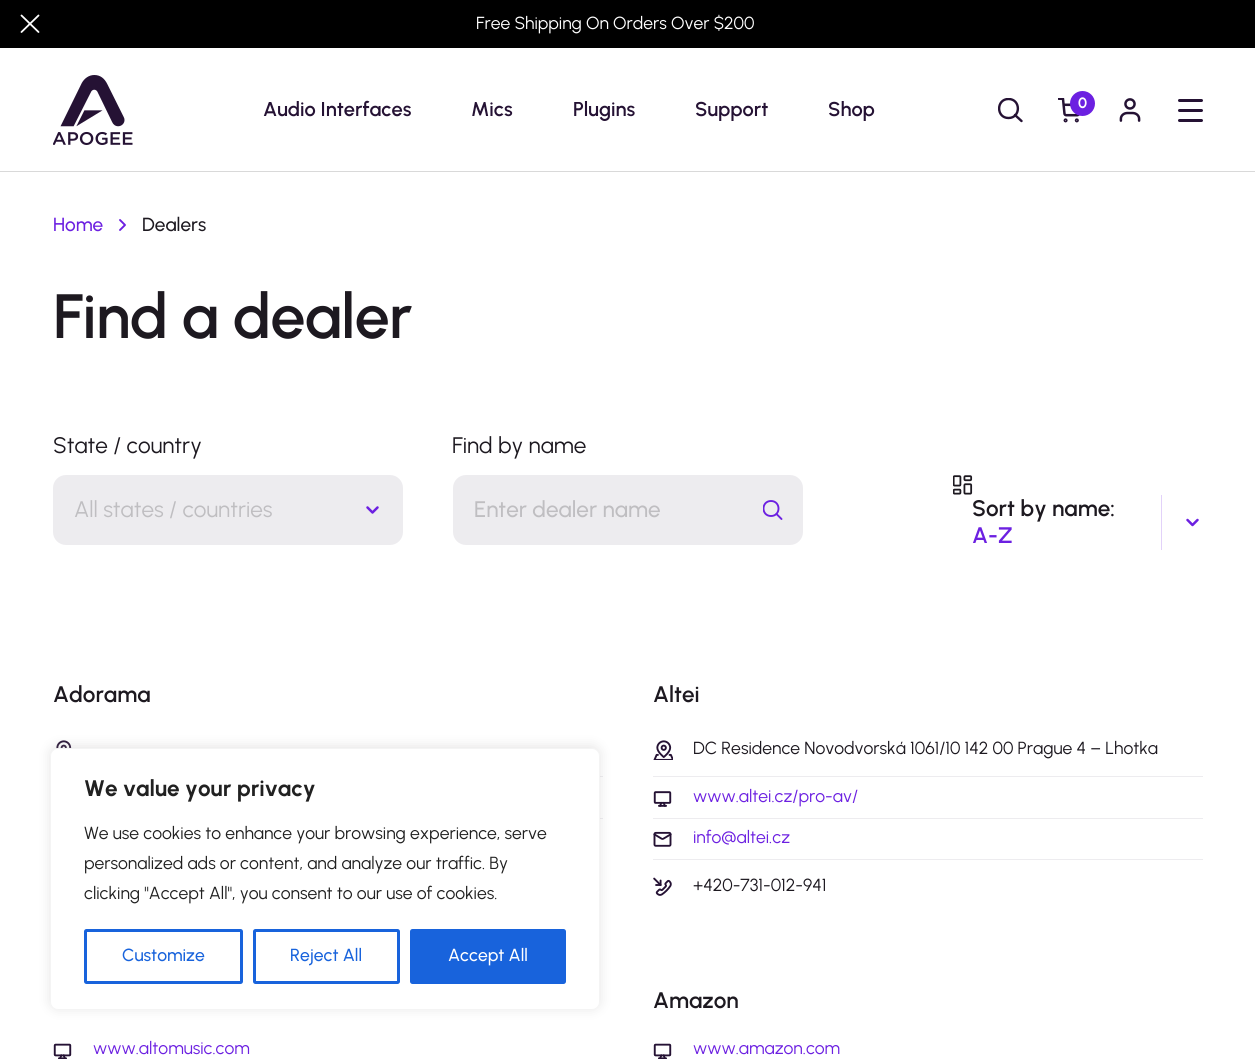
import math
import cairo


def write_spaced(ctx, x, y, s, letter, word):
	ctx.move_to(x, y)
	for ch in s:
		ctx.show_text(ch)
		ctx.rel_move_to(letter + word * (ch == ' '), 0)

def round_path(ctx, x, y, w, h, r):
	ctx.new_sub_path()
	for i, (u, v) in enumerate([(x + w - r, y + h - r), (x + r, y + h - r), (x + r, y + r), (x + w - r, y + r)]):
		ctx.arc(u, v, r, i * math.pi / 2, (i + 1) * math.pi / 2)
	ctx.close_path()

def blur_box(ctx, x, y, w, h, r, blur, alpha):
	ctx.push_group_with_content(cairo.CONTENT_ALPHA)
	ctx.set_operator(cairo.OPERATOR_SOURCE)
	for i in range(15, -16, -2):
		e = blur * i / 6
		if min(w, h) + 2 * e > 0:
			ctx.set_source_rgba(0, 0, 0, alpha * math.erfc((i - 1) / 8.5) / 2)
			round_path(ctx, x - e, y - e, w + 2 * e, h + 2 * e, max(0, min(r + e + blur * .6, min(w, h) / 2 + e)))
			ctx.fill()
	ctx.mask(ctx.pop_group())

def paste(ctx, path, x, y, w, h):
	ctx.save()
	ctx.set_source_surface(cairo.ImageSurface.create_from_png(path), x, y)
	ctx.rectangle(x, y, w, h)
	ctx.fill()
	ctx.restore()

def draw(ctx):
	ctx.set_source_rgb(1, 1, 1)
	ctx.paint()
	ctx.set_source_rgb(0.851, 0.851, 0.851)
	ctx.rectangle(0, 171, 1255, 1)
	ctx.fill()
	ctx.set_source_rgb(0, 0, 0)
	ctx.rectangle(0, 0, 1255, 48)
	ctx.fill()
	ctx.new_path()
	ctx.move_to(38.5, 15.5)
	ctx.line_to(21.5, 32)
	ctx.move_to(21.5, 15.5)
	ctx.line_to(38.5, 32)
	ctx.set_source_rgb(1, 1, 1)
	ctx.set_line_width(1.8)
	ctx.set_line_cap(cairo.LINE_CAP_ROUND)
	ctx.set_line_join(cairo.LINE_JOIN_ROUND)
	ctx.stroke()
	ctx.select_font_face('Urbanist')
	ctx.set_font_size(17.5)
	ctx.move_to(476, 29)
	ctx.show_text('Free Shipping On Orders Over $200')
	paste(ctx, 'media/1.png', 53, 75, 80, 70)
	ctx.select_font_face('Urbanist SemiBold')
	ctx.set_font_size(20)
	ctx.set_source_rgb(0.145, 0.071, 0.204)
	for x, y, s in [
		(263, 116, 'Audio Interfaces'),
		(471, 116, 'Mics'),
		(573, 116, 'Plugins'),
		(695, 116, 'Support'),
		(828, 116, 'Shop'),
	]:
		ctx.move_to(x, y)
		ctx.show_text(s)
	ctx.save()
	ctx.rectangle(998, 98, 25, 25)
	ctx.clip()
	ctx.new_path()
	ctx.move_to(1008.5, 118)
	ctx.curve_to(1021, 118, 1021, 99, 1008.5, 99)
	ctx.curve_to(996, 99, 996, 118, 1008.5, 118)
	ctx.close_path()
	ctx.set_line_width(2.4)
	ctx.stroke()
	ctx.restore()
	ctx.new_path()
	ctx.move_to(1021.5, 121)
	ctx.line_to(1015, 115)
	ctx.set_line_width(2.4)
	ctx.stroke()
	paste(ctx, 'media/2.png', 1058, 98, 22, 25)
	ctx.set_source_rgb(0.424, 0.125, 0.882)
	ctx.arc(1082.5, 103.5, 12.5, 0, 2 * math.pi)
	ctx.fill()
	ctx.select_font_face('Urbanist', cairo.FONT_SLANT_NORMAL, cairo.FONT_WEIGHT_BOLD)
	ctx.set_font_size(15)
	ctx.set_source_rgb(1, 1, 1)
	ctx.move_to(1078, 108)
	ctx.show_text('0')
	paste(ctx, 'media/3.png', 1119, 98, 22, 24)
	ctx.set_source_rgb(0.145, 0.071, 0.204)
	round_path(ctx, 1178, 99, 25, 3, 1.5)
	ctx.fill()
	round_path(ctx, 1178, 109, 25, 3, 1.5)
	ctx.fill()
	round_path(ctx, 1178, 119, 25, 3, 1.5)
	ctx.fill()
	ctx.select_font_face('Urbanist Medium')
	ctx.set_font_size(19)
	ctx.set_source_rgb(0.424, 0.125, 0.882)
	ctx.move_to(53, 231)
	ctx.show_text('Home')
	ctx.new_path()
	ctx.move_to(120, 220)
	ctx.line_to(125, 225)
	ctx.line_to(120, 230)
	ctx.set_line_width(1.9)
	ctx.stroke()
	ctx.set_source_rgb(0.114, 0.098, 0.125)
	ctx.move_to(142, 231)
	ctx.show_text('Dealers')
	ctx.select_font_face('Urbanist SemiBold')
	ctx.set_font_size(62.5)
	write_spaced(ctx, 53, 338, 'Find a dealer', -0.6, 0)
	ctx.select_font_face('Urbanist')
	ctx.set_font_size(22.5)
	ctx.move_to(53, 453)
	ctx.show_text('State / country')
	ctx.set_source_rgb(0.929, 0.922, 0.937)
	round_path(ctx, 53, 475, 350, 70, 13)
	ctx.fill()
	ctx.set_source_rgb(0.749, 0.745, 0.757)
	ctx.move_to(74, 517)
	ctx.show_text('All states / countries')
	ctx.new_path()
	ctx.move_to(377.5, 507.5)
	ctx.line_to(372.5, 512.5)
	ctx.line_to(367.5, 507.5)
	ctx.set_source_rgb(0.424, 0.125, 0.882)
	ctx.set_line_width(2.5)
	ctx.stroke()
	ctx.set_source_rgb(0.114, 0.098, 0.125)
	ctx.move_to(452, 453)
	ctx.show_text('Find by name')
	ctx.set_source_rgb(0.929, 0.922, 0.937)
	round_path(ctx, 453, 475, 350, 70, 13)
	ctx.fill()
	ctx.select_font_face('Urbanist Medium')
	ctx.set_source_rgb(0.749, 0.745, 0.757)
	ctx.move_to(474, 517)
	ctx.show_text('Enter dealer name')
	ctx.save()
	ctx.rectangle(763, 500, 20, 20)
	ctx.clip()
	ctx.new_path()
	ctx.move_to(771, 516)
	ctx.curve_to(781, 516, 781, 501, 771, 501)
	ctx.curve_to(761, 501, 761, 516, 771, 516)
	ctx.close_path()
	ctx.set_source_rgb(0.424, 0.125, 0.882)
	ctx.set_line_width(1.9)
	ctx.stroke()
	ctx.restore()
	ctx.new_path()
	ctx.move_to(781.5, 519)
	ctx.line_to(776.5, 514)
	ctx.set_source_rgb(0.424, 0.125, 0.882)
	ctx.set_line_width(1.9)
	ctx.stroke()
	paste(ctx, 'media/4.png', 953, 475, 20, 20)
	ctx.set_source_rgb(0.886, 0.824, 0.976)
	ctx.rectangle(1161, 495, 1, 55)
	ctx.fill()
	ctx.select_font_face('Urbanist SemiBold')
	ctx.set_source_rgb(0.114, 0.098, 0.125)
	ctx.move_to(972, 516)
	ctx.show_text('Sort by name:')
	ctx.set_source_rgb(0.424, 0.125, 0.882)
	ctx.move_to(972, 543)
	ctx.show_text('A-Z')
	ctx.new_path()
	ctx.move_to(1197.5, 520)
	ctx.line_to(1192.5, 525)
	ctx.line_to(1187.5, 520)
	ctx.set_line_width(2.5)
	ctx.stroke()
	ctx.set_source_rgb(0.114, 0.098, 0.125)
	ctx.move_to(53, 702)
	ctx.show_text('Adorama')
	ctx.set_source_rgb(0.929, 0.922, 0.937)
	ctx.rectangle(600, 776, 3, 1)
	ctx.fill()
	paste(ctx, 'media/5.png', 56, 740, 16, 9)
	ctx.rectangle(600, 818, 3, 1)
	ctx.fill()
	ctx.set_source_rgb(0.114, 0.098, 0.125)
	ctx.move_to(653, 702)
	ctx.show_text('Altei')
	ctx.set_source_rgb(0.929, 0.922, 0.937)
	ctx.rectangle(653, 776, 550, 1)
	ctx.fill()
	paste(ctx, 'media/6.png', 653, 740, 20, 20)
	ctx.select_font_face('Urbanist')
	ctx.set_font_size(17.5)
	ctx.set_source_rgb(0.114, 0.098, 0.125)
	ctx.move_to(693, 754)
	ctx.show_text('DC Residence Novodvorská 1061/10 142 00 Prague 4 – Lhotka')
	ctx.set_source_rgb(0.929, 0.922, 0.937)
	ctx.rectangle(653, 818, 550, 1)
	ctx.fill()
	paste(ctx, 'media/7.png', 653, 791, 19, 16)
	ctx.set_source_rgb(0.424, 0.125, 0.882)
	ctx.move_to(693, 802)
	ctx.show_text('www.altei.cz/pro-av/')
	ctx.set_source_rgb(0.929, 0.922, 0.937)
	ctx.rectangle(653, 859, 550, 1)
	ctx.fill()
	paste(ctx, 'media/8.png', 653, 831, 19, 16)
	ctx.set_source_rgb(0.424, 0.125, 0.882)
	ctx.move_to(693, 843)
	ctx.show_text('info@altei.cz')
	paste(ctx, 'media/9.png', 653, 877, 19, 19)
	ctx.set_source_rgb(0.114, 0.098, 0.125)
	ctx.move_to(693, 891)
	ctx.show_text('+420-731-012-941')
	paste(ctx, 'media/10.png', 53, 1043, 19, 16)
	ctx.set_source_rgb(0.424, 0.125, 0.882)
	ctx.move_to(93, 1054)
	ctx.show_text('www.altomusic.com')
	ctx.select_font_face('Urbanist SemiBold')
	ctx.set_font_size(22.5)
	ctx.set_source_rgb(0.114, 0.098, 0.125)
	ctx.move_to(653, 1008)
	ctx.show_text('Amazon')
	paste(ctx, 'media/10.png', 653, 1043, 19, 16)
	ctx.select_font_face('Urbanist')
	ctx.set_font_size(17.5)
	ctx.set_source_rgb(0.424, 0.125, 0.882)
	ctx.move_to(693, 1054)
	ctx.show_text('www.amazon.com')
	ctx.set_source_rgb(0.675, 0.671, 0.671)
	blur_box(ctx, 50, 746, 550, 263, 8, 6, 0.3)
	ctx.set_source_rgb(1, 1, 1)
	round_path(ctx, 50.5, 748.5, 549, 261, 7.5)
	ctx.fill_preserve()
	ctx.set_source_rgb(0.957, 0.957, 0.957)
	ctx.set_line_width(1)
	ctx.set_line_cap(cairo.LINE_CAP_BUTT)
	ctx.set_line_join(cairo.LINE_JOIN_MITER)
	ctx.stroke()
	ctx.select_font_face('Urbanist', cairo.FONT_SLANT_NORMAL, cairo.FONT_WEIGHT_BOLD)
	ctx.set_font_size(22.5)
	ctx.set_source_rgb(0.129, 0.129, 0.129)
	ctx.move_to(84, 796)
	ctx.show_text('We value your privacy')
	ctx.select_font_face('Urbanist')
	ctx.set_font_size(17.5)
	for x, y, s in [
		(84, 839, 'We use cookies to enhance your browsing experience, serve'),
		(84, 869, 'personalized ads or content, and analyze our traffic. By'),
		(84, 899, 'clicking "Accept All", you consent to our use of cookies.'),
	]:
		ctx.move_to(x, y)
		ctx.show_text(s)
	round_path(ctx, 85.5, 930.5, 156, 52, 1)
	ctx.set_source_rgb(0.094, 0.388, 0.863)
	ctx.set_line_width(3)
	ctx.stroke()
	ctx.select_font_face('Urbanist Medium')
	ctx.move_to(122, 961)
	ctx.show_text('Customize')
	round_path(ctx, 254.5, 930.5, 144, 52, 1)
	ctx.stroke()
	ctx.move_to(290, 961)
	ctx.show_text('Reject All')
	round_path(ctx, 411.5, 930.5, 153, 52, 1)
	ctx.fill_preserve()
	ctx.stroke()
	ctx.set_source_rgb(1, 1, 1)
	ctx.move_to(448, 961)
	ctx.show_text('Accept All')


surface = cairo.ImageSurface(cairo.FORMAT_RGB24, 1255, 1059)
ctx = cairo.Context(surface)
options = cairo.FontOptions()
options.set_hint_metrics(cairo.HINT_METRICS_OFF)
options.set_hint_style(cairo.HINT_STYLE_NONE)
ctx.set_font_options(options)
ctx.set_miter_limit(4)
draw(ctx)
surface.write_to_png('image.png')
